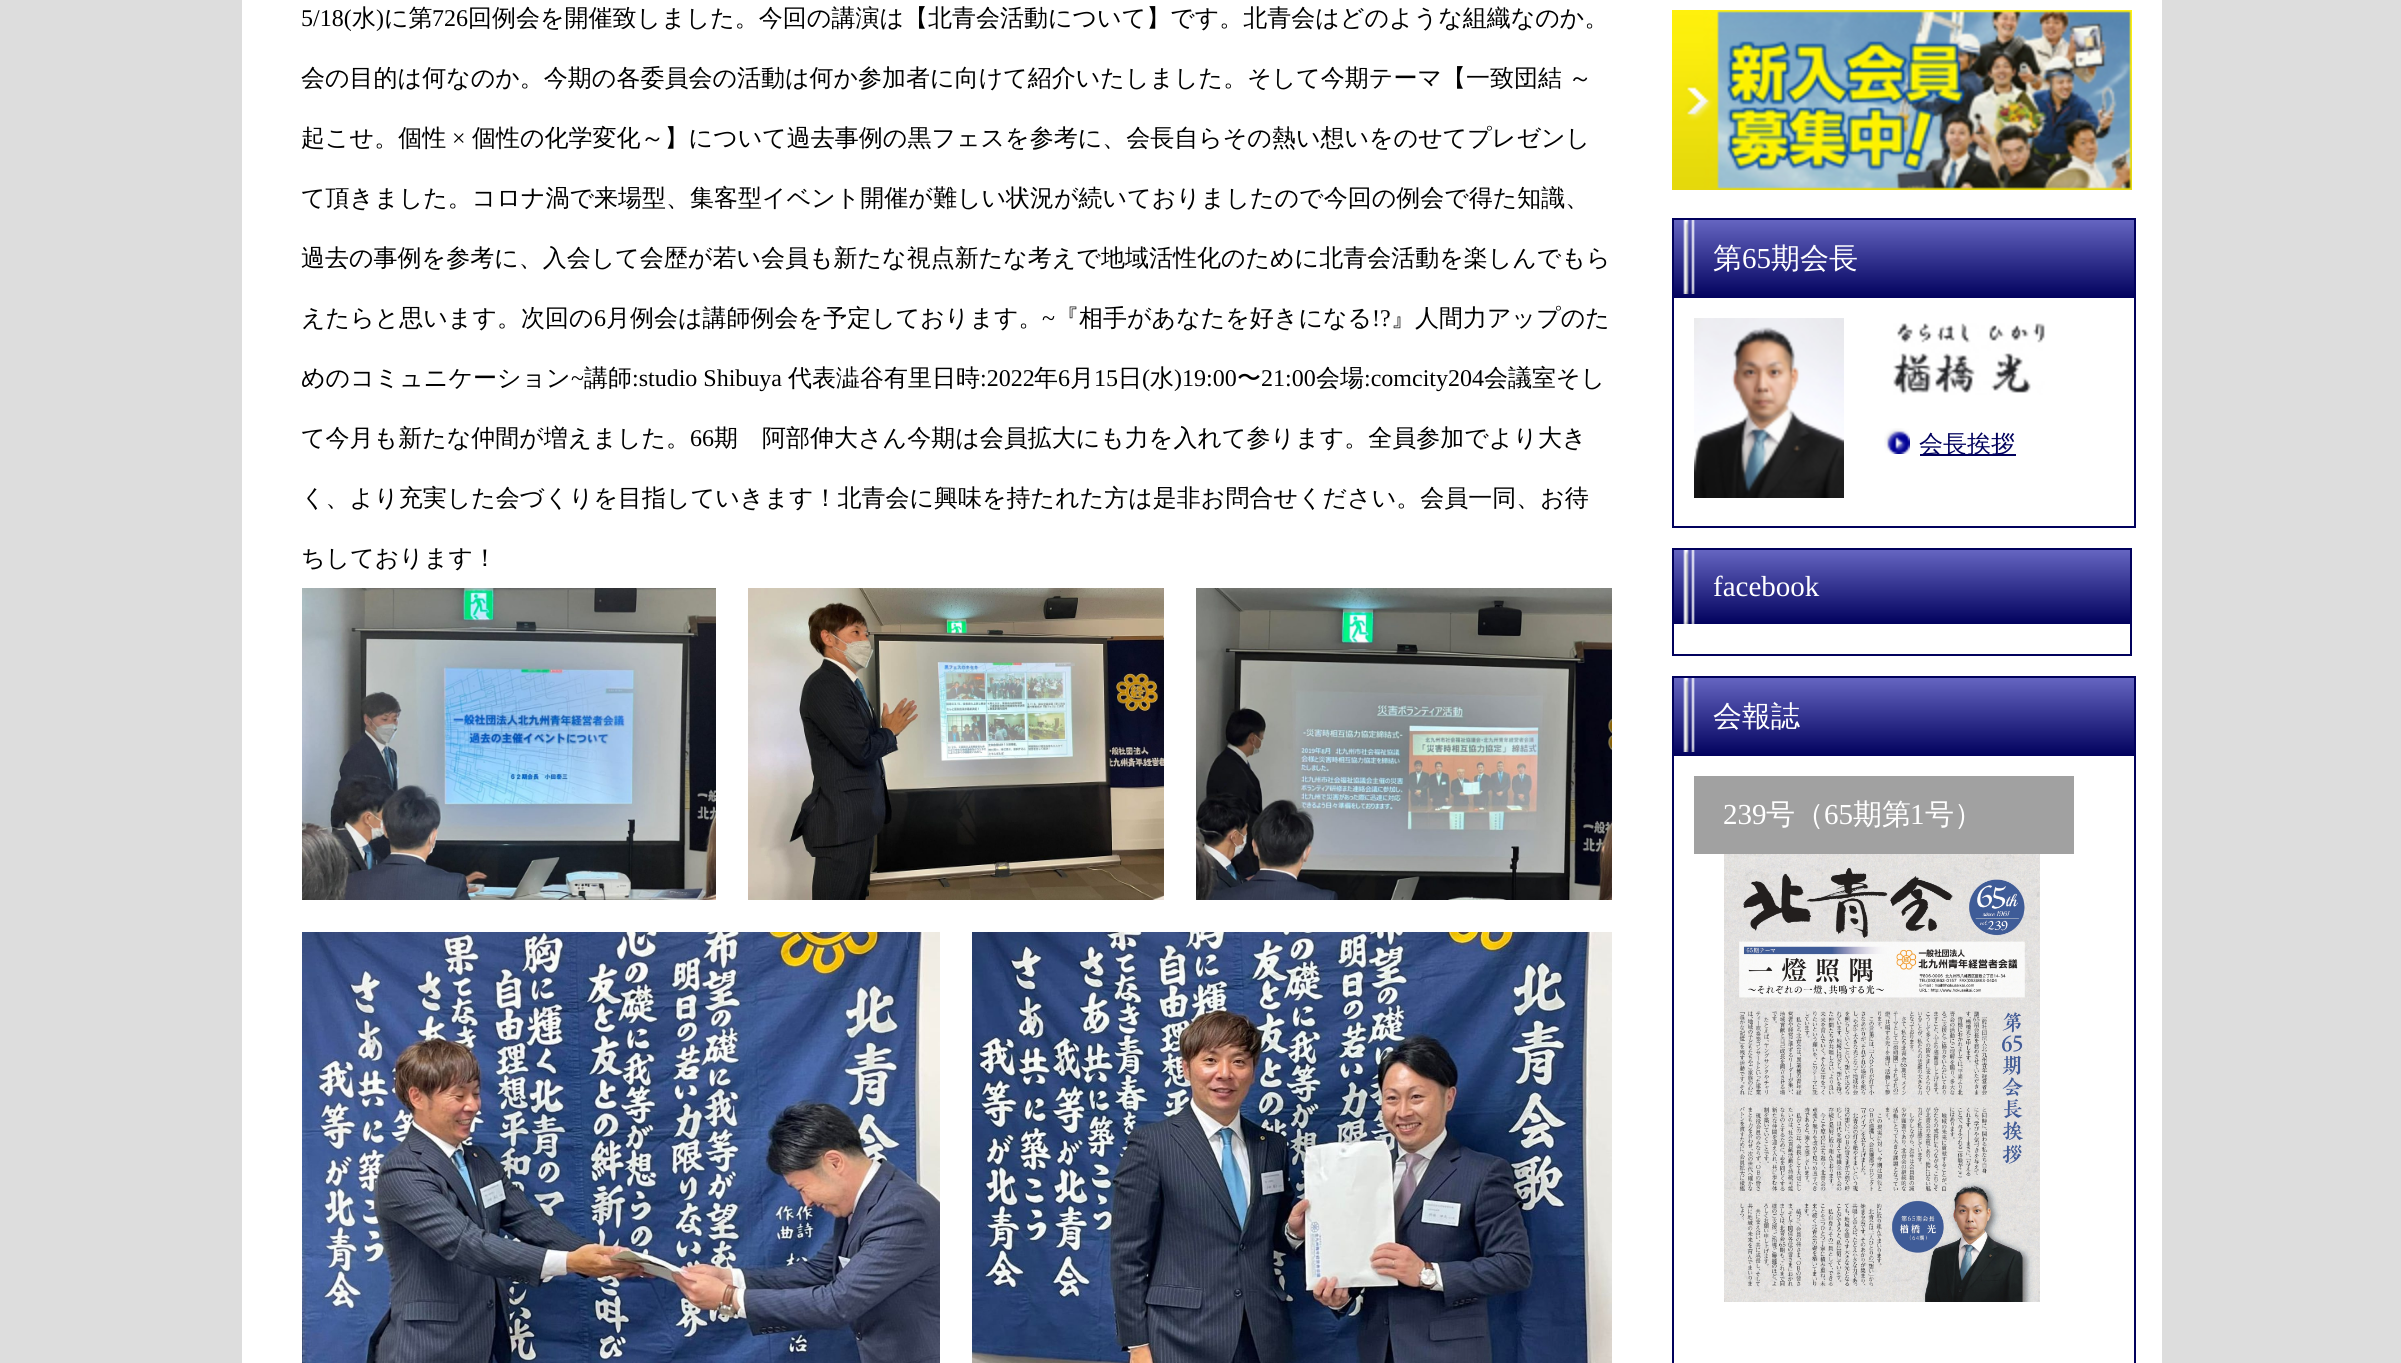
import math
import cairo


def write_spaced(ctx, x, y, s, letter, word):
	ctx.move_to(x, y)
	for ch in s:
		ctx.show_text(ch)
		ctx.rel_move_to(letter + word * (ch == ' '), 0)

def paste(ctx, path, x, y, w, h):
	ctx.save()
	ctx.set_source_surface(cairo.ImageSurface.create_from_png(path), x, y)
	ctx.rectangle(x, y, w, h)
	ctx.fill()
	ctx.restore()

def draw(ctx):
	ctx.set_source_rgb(0.867, 0.867, 0.867)
	ctx.paint()
	ctx.set_source_rgb(1, 1, 1)
	ctx.rectangle(242, 0, 1920, 1363)
	ctx.fill()
	ctx.select_font_face('Liberation Serif')
	ctx.set_font_size(24)
	ctx.set_source_rgb(0, 0, 0)
	ctx.move_to(301, 26)
	ctx.show_text('5/18(')
	ctx.select_font_face('WenQuanYi Zen Hei Medium')
	ctx.move_to(352, 26)
	ctx.show_text('水')
	ctx.select_font_face('Liberation Serif')
	ctx.move_to(376, 26)
	ctx.show_text(')')
	ctx.select_font_face('WenQuanYi Zen Hei Medium')
	ctx.move_to(384, 26)
	ctx.show_text('に第')
	ctx.select_font_face('Liberation Serif')
	ctx.move_to(432, 26)
	ctx.show_text('726')
	ctx.select_font_face('WenQuanYi Zen Hei Medium')
	ctx.move_to(468, 26)
	ctx.show_text('回例会を開催致しました。今回の講演は【北青会活動について】です。北青会はどのような組織なのか。')
	write_spaced(ctx, 301, 86, '会の目的は何なのか。今期の各委員会の活動は何か参加者に向けて紹介いたしました。そして今期テーマ【一致団結 ～', 0, -1)
	ctx.move_to(301, 146)
	ctx.show_text('起こせ。個性')
	ctx.select_font_face('Liberation Serif')
	ctx.move_to(452, 146)
	ctx.show_text('×')
	ctx.select_font_face('WenQuanYi Zen Hei Medium')
	for x, y, s in [
		(472, 146, '個性の化学変化～】について過去事例の黒フェスを参考に、会長自らその熱い想いをのせてプレゼンし'),
		(301, 206, 'て頂きました。コロナ渦で来場型、集客型イベント開催が難しい状況が続いておりましたので今回の例会で得た知識、'),
		(301, 266, '過去の事例を参考に、入会して会歴が若い会員も新たな視点新たな考えで地域活性化のために北青会活動を楽しんでもら'),
		(301, 326, 'えたらと思います。次回の'),
	]:
		ctx.move_to(x, y)
		ctx.show_text(s)
	ctx.select_font_face('Liberation Serif')
	ctx.move_to(594, 326)
	ctx.show_text('6')
	ctx.select_font_face('WenQuanYi Zen Hei Medium')
	ctx.move_to(606, 326)
	ctx.show_text('月例会は講師例会を予定しております。')
	ctx.select_font_face('Liberation Serif')
	ctx.move_to(1042, 326)
	ctx.show_text('~')
	ctx.select_font_face('WenQuanYi Zen Hei Medium')
	ctx.move_to(1055, 326)
	ctx.show_text('『相手があなたを好きになる')
	ctx.select_font_face('Liberation Serif')
	ctx.move_to(1372, 326)
	ctx.show_text('!?')
	ctx.select_font_face('WenQuanYi Zen Hei Medium')
	ctx.move_to(1391, 326)
	ctx.show_text('』人間力アップのた')
	ctx.move_to(301, 386)
	ctx.show_text('めのコミュニケーション')
	ctx.select_font_face('Liberation Serif')
	ctx.move_to(571, 386)
	ctx.show_text('~')
	ctx.select_font_face('WenQuanYi Zen Hei Medium')
	ctx.move_to(584, 386)
	ctx.show_text('講師')
	ctx.select_font_face('Liberation Serif')
	ctx.move_to(632, 386)
	ctx.show_text(':studio Shibuya')
	ctx.select_font_face('WenQuanYi Zen Hei Medium')
	ctx.move_to(788, 386)
	ctx.show_text('代表澁谷有里日時')
	ctx.select_font_face('Liberation Serif')
	ctx.move_to(980, 386)
	ctx.show_text(':2022')
	ctx.select_font_face('WenQuanYi Zen Hei Medium')
	ctx.move_to(1034, 386)
	ctx.show_text('年')
	ctx.select_font_face('Liberation Serif')
	ctx.move_to(1058, 386)
	ctx.show_text('6')
	ctx.select_font_face('WenQuanYi Zen Hei Medium')
	ctx.move_to(1070, 386)
	ctx.show_text('月')
	ctx.select_font_face('Liberation Serif')
	ctx.move_to(1094, 386)
	ctx.show_text('15')
	ctx.select_font_face('WenQuanYi Zen Hei Medium')
	ctx.move_to(1118, 386)
	ctx.show_text('日')
	ctx.select_font_face('Liberation Serif')
	ctx.move_to(1142, 386)
	ctx.show_text('(')
	ctx.select_font_face('WenQuanYi Zen Hei Medium')
	ctx.move_to(1150, 386)
	ctx.show_text('水')
	ctx.select_font_face('Liberation Serif')
	ctx.move_to(1174, 386)
	ctx.show_text(')19:00')
	ctx.select_font_face('WenQuanYi Zen Hei Medium')
	ctx.move_to(1237, 386)
	ctx.show_text('〜')
	ctx.select_font_face('Liberation Serif')
	ctx.move_to(1261, 386)
	ctx.show_text('21:00')
	ctx.select_font_face('WenQuanYi Zen Hei Medium')
	ctx.move_to(1316, 386)
	ctx.show_text('会場')
	ctx.select_font_face('Liberation Serif')
	ctx.move_to(1364, 386)
	ctx.show_text(':comcity204')
	ctx.select_font_face('WenQuanYi Zen Hei Medium')
	ctx.move_to(1484, 386)
	ctx.show_text('会議室そし')
	ctx.move_to(301, 446)
	ctx.show_text('て今月も新たな仲間が増えました。')
	ctx.select_font_face('Liberation Serif')
	ctx.move_to(690, 446)
	ctx.show_text('66')
	ctx.select_font_face('WenQuanYi Zen Hei Medium')
	for x, y, s in [
		(714, 446, '期　阿部伸大さん今期は会員拡大にも力を入れて参ります。全員参加でより大き'),
		(301, 506, 'く、より充実した会づくりを目指していきます！北青会に興味を持たれた方は是非お問合せください。会員一同、お待'),
		(301, 566, 'ちしております！'),
	]:
		ctx.move_to(x, y)
		ctx.show_text(s)
	paste(ctx, 'media/1.png', 302, 588, 414, 312)
	paste(ctx, 'media/2.png', 748, 588, 416, 312)
	paste(ctx, 'media/3.png', 1196, 588, 416, 312)
	paste(ctx, 'media/4.png', 302, 932, 638, 431)
	paste(ctx, 'media/5.png', 972, 932, 640, 431)
	paste(ctx, 'media/6.png', 1672, 10, 460, 180)
	ctx.rectangle(1673, 219, 462, 308)
	ctx.set_source_rgb(0.004, 0.004, 0.365)
	ctx.stroke()
	gradient = cairo.LinearGradient(1904, 220, 1904, 298)
	gradient.add_color_stop_rgba(0, 0.396, 0.396, 0.757, 1)
	gradient.add_color_stop_rgba(1, 0.004, 0.004, 0.365, 1)
	ctx.set_source(gradient)
	ctx.rectangle(1674, 220, 460, 78)
	ctx.fill()
	paste(ctx, 'media/7.png', 1683, 220, 12, 74)
	ctx.set_font_size(29)
	ctx.set_source_rgb(1, 1, 1)
	ctx.move_to(1713, 268)
	ctx.show_text('第')
	ctx.select_font_face('Liberation Serif')
	ctx.move_to(1742, 268)
	ctx.show_text('65')
	ctx.select_font_face('WenQuanYi Zen Hei Medium')
	ctx.move_to(1771, 268)
	ctx.show_text('期会長')
	paste(ctx, 'media/8.png', 1694, 318, 150, 180)
	paste(ctx, 'media/9.png', 1893, 323, 152, 72)
	paste(ctx, 'media/10.png', 1884, 428, 26, 26)
	ctx.set_source_rgb(0.004, 0.004, 0.365)
	ctx.rectangle(1920, 454, 96, 2)
	ctx.fill()
	ctx.set_font_size(24)
	ctx.move_to(1919, 452)
	ctx.show_text('会長挨拶')
	ctx.rectangle(1673, 549, 458, 106)
	ctx.stroke()
	gradient = cairo.LinearGradient(1902, 550, 1902, 624)
	gradient.add_color_stop_rgba(0, 0.396, 0.396, 0.757, 1)
	gradient.add_color_stop_rgba(1, 0.004, 0.004, 0.365, 1)
	ctx.set_source(gradient)
	ctx.rectangle(1674, 550, 456, 74)
	ctx.fill()
	paste(ctx, 'media/11.png', 1683, 550, 12, 74)
	ctx.select_font_face('Liberation Serif')
	ctx.set_font_size(29)
	ctx.set_source_rgb(1, 1, 1)
	ctx.move_to(1713, 596)
	ctx.show_text('facebook')
	ctx.rectangle(1673, 677, 462, 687)
	ctx.set_source_rgb(0.004, 0.004, 0.365)
	ctx.stroke()
	gradient = cairo.LinearGradient(1904, 678, 1904, 756)
	gradient.add_color_stop_rgba(0, 0.396, 0.396, 0.757, 1)
	gradient.add_color_stop_rgba(1, 0.004, 0.004, 0.365, 1)
	ctx.set_source(gradient)
	ctx.rectangle(1674, 678, 460, 78)
	ctx.fill()
	paste(ctx, 'media/7.png', 1683, 678, 12, 74)
	ctx.select_font_face('WenQuanYi Zen Hei Medium')
	ctx.set_source_rgb(1, 1, 1)
	ctx.move_to(1713, 726)
	ctx.show_text('会報誌')
	ctx.set_source_rgb(0.631, 0.631, 0.631)
	ctx.rectangle(1694, 776, 380, 78)
	ctx.fill()
	ctx.select_font_face('Liberation Serif')
	ctx.set_source_rgb(1, 1, 1)
	ctx.move_to(1723, 824)
	ctx.show_text('239')
	ctx.select_font_face('WenQuanYi Zen Hei Medium')
	ctx.move_to(1766, 824)
	ctx.show_text('号（')
	ctx.select_font_face('Liberation Serif')
	ctx.move_to(1824, 824)
	ctx.show_text('65')
	ctx.select_font_face('WenQuanYi Zen Hei Medium')
	ctx.move_to(1853, 824)
	ctx.show_text('期第')
	ctx.select_font_face('Liberation Serif')
	ctx.move_to(1910, 824)
	ctx.show_text('1')
	ctx.select_font_face('WenQuanYi Zen Hei Medium')
	ctx.move_to(1925, 824)
	ctx.show_text('号）')
	paste(ctx, 'media/12.png', 1724, 854, 316, 448)


surface = cairo.ImageSurface(cairo.FORMAT_RGB24, 2401, 1363)
ctx = cairo.Context(surface)
options = cairo.FontOptions()
options.set_hint_metrics(cairo.HINT_METRICS_OFF)
options.set_hint_style(cairo.HINT_STYLE_NONE)
ctx.set_font_options(options)
ctx.set_miter_limit(4)
draw(ctx)
surface.write_to_png('image.png')
